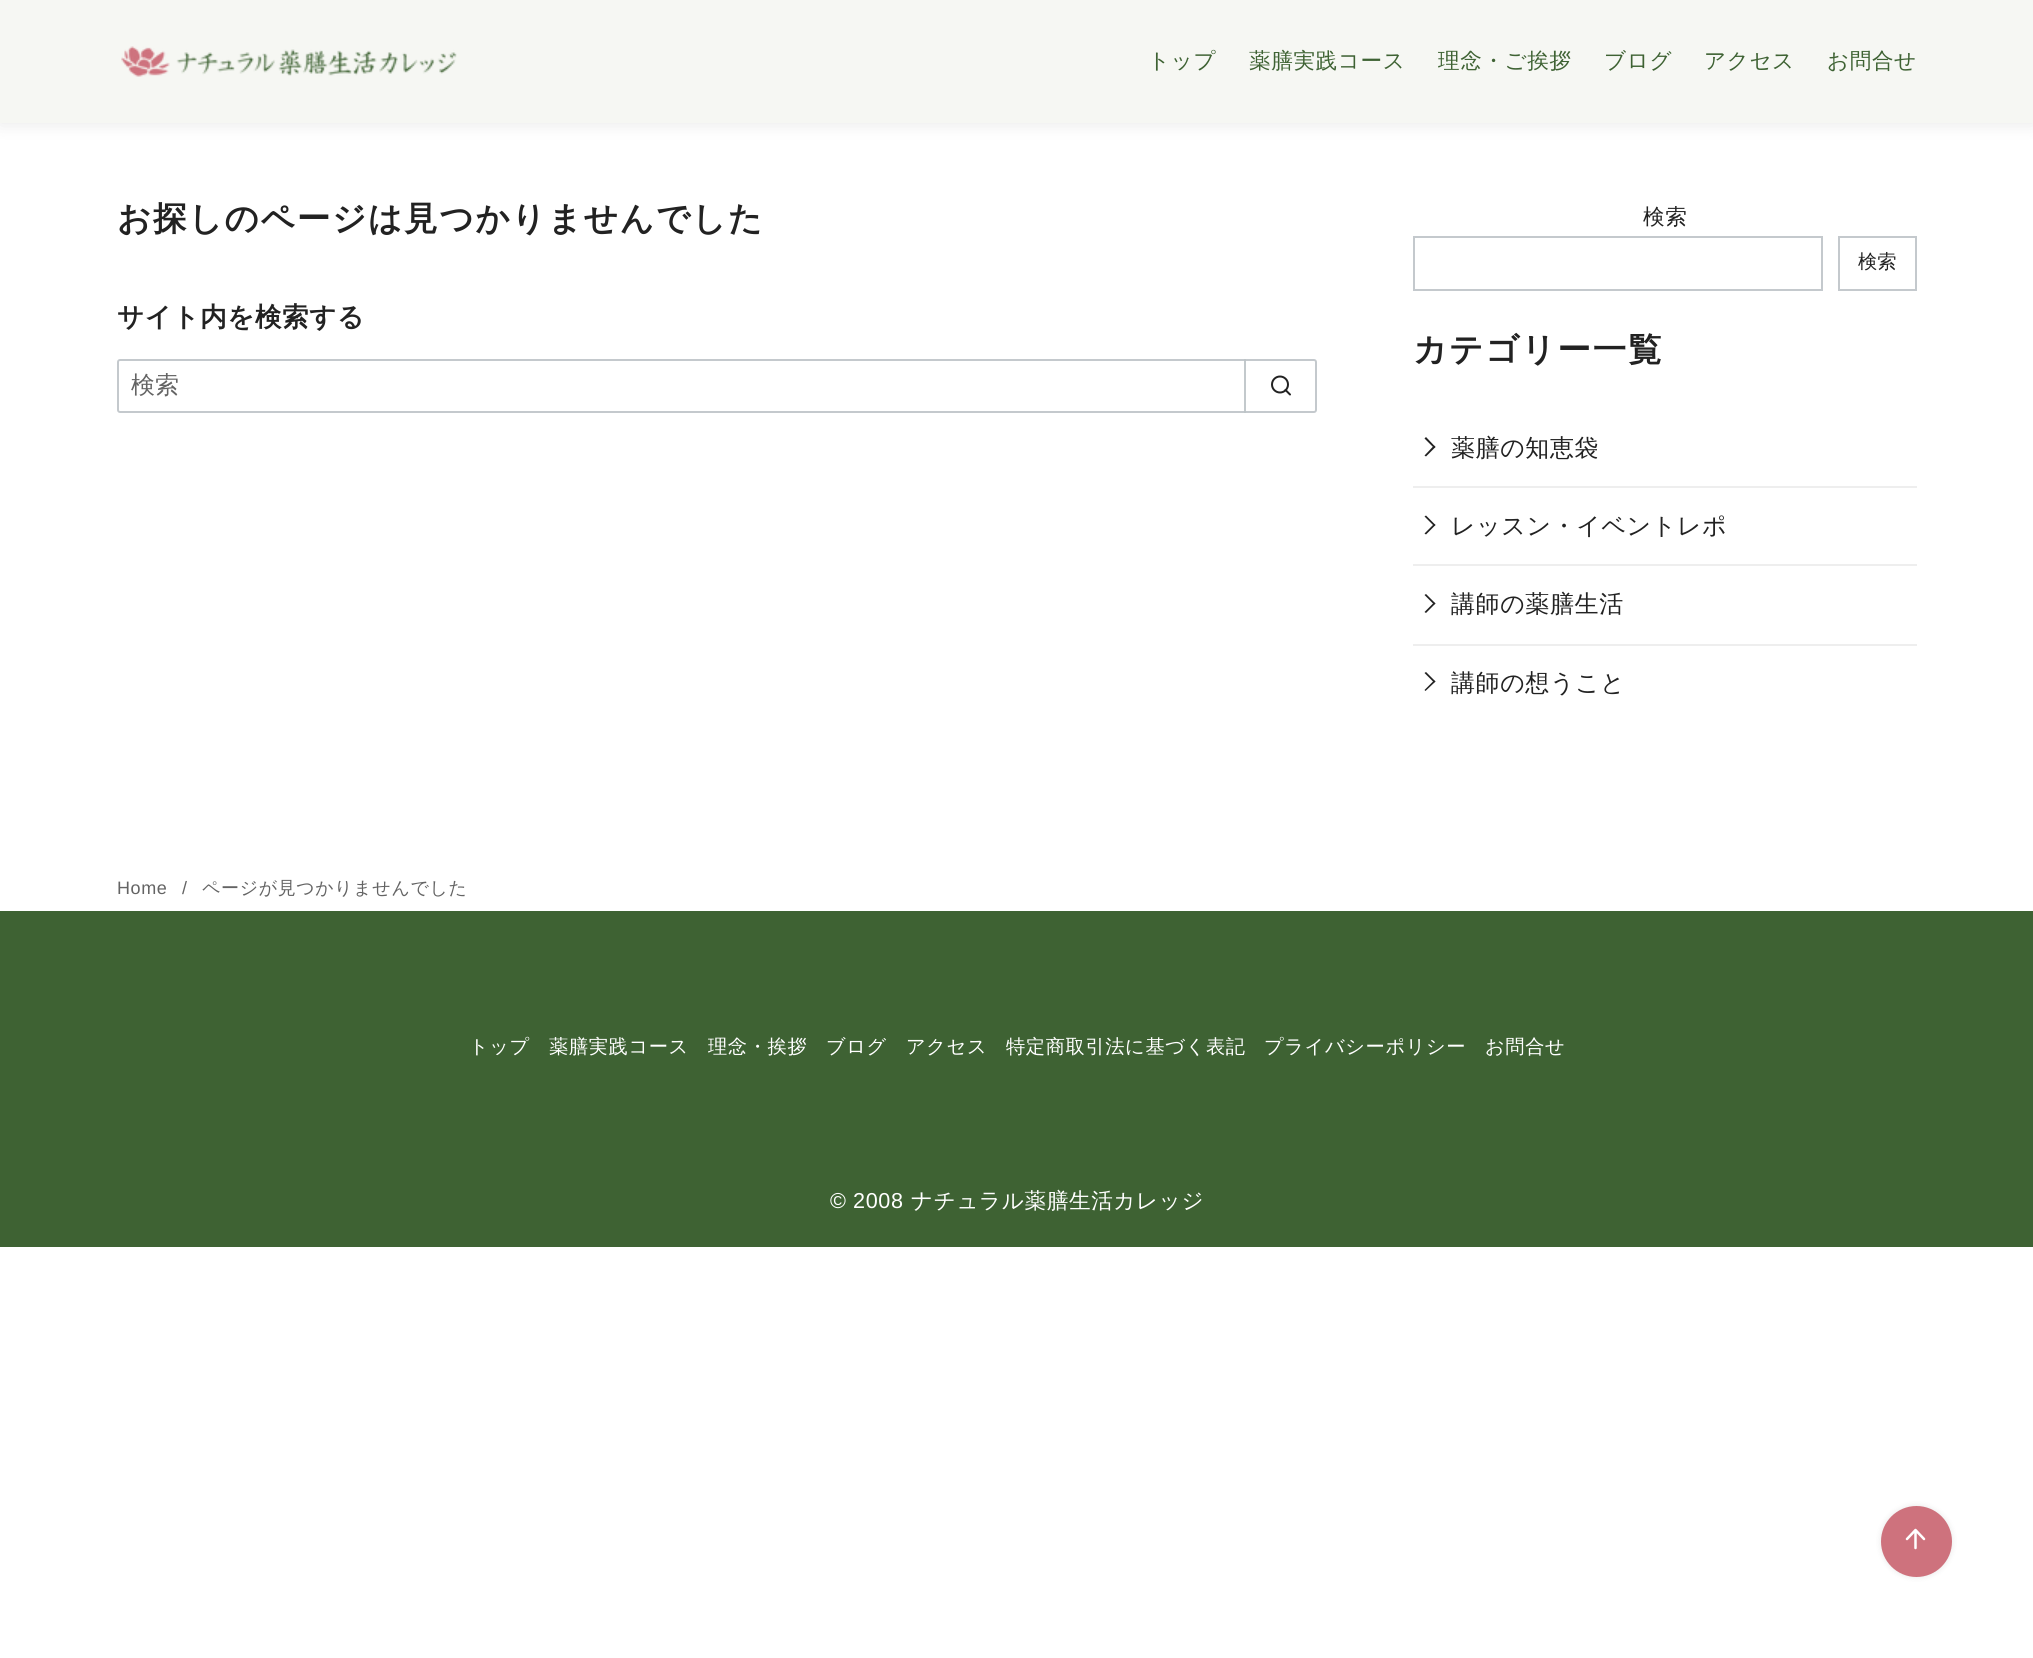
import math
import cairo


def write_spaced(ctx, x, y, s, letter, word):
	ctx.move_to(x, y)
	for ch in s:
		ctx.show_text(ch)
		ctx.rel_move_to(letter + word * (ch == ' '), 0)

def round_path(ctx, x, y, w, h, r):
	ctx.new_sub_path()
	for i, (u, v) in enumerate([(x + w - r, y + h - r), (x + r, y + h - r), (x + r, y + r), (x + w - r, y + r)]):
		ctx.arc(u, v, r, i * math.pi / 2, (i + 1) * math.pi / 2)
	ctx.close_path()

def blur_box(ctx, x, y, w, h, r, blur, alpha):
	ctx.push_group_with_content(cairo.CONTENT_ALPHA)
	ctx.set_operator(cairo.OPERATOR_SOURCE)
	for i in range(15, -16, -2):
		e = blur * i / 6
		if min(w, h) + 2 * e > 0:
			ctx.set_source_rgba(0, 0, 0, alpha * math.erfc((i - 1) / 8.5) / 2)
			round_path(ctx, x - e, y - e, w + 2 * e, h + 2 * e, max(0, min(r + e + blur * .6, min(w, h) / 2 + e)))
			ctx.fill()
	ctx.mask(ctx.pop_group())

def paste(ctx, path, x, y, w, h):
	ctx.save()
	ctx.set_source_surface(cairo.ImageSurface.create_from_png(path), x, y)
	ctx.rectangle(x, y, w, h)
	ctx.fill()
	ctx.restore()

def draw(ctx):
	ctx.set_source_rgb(1, 1, 1)
	ctx.paint()
	ctx.set_source_rgb(0, 0, 0)
	blur_box(ctx, 0, 0, 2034, 123, 0, 9, 0.1)
	ctx.set_source_rgb(0.961, 0.965, 0.953)
	ctx.rectangle(0, 0, 2033, 123)
	ctx.fill()
	paste(ctx, 'media/1.png', 121, 46, 336, 31)
	ctx.select_font_face('WenQuanYi Zen Hei Medium')
	ctx.set_font_size(21.6)
	ctx.set_source_rgb(0.243, 0.384, 0.2)
	for x, y, s in [
		(1148, 68, 'トップ'),
		(1249, 68, '薬膳実践コース'),
		(1438, 68, '理念・ご挨拶'),
		(1604, 68, 'ブログ'),
		(1704, 68, 'アクセス'),
		(1827, 68, 'お問合せ'),
	]:
		write_spaced(ctx, x, y, s, 0.6, 0)
	ctx.select_font_face('WenQuanYi Zen Hei', cairo.FONT_SLANT_NORMAL, cairo.FONT_WEIGHT_BOLD)
	ctx.set_font_size(33.6)
	ctx.set_source_rgb(0.133, 0.133, 0.133)
	write_spaced(ctx, 117, 230, 'お探しのページは見つかりませんでした', 1.7, 0)
	ctx.set_font_size(26.5)
	write_spaced(ctx, 117, 326, 'サイト内を検索する', 0.6, 0)
	round_path(ctx, 118, 360, 1198, 52, 2)
	ctx.set_source_rgb(0.769, 0.788, 0.804)
	ctx.stroke()
	ctx.select_font_face('WenQuanYi Zen Hei Medium')
	ctx.set_font_size(24)
	ctx.set_source_rgb(0.392, 0.392, 0.392)
	ctx.move_to(131, 393)
	ctx.show_text('検索')
	ctx.set_source_rgba(0.741, 0.765, 0.78, 0.9)
	ctx.rectangle(1244, 359, 2, 54)
	ctx.fill()
	ctx.arc(1280, 384.5, 8, 0, 2 * math.pi)
	ctx.set_source_rgb(0.133, 0.133, 0.133)
	ctx.stroke()
	ctx.new_path()
	ctx.move_to(1290, 394.5)
	ctx.line_to(1285.5, 390)
	ctx.set_line_cap(cairo.LINE_CAP_ROUND)
	ctx.set_line_join(cairo.LINE_JOIN_ROUND)
	ctx.stroke()
	ctx.set_font_size(21.6)
	write_spaced(ctx, 1643, 224, '検索', 0.6, 0)
	ctx.rectangle(1414, 237, 408, 53)
	ctx.set_source_rgb(0.769, 0.788, 0.804)
	ctx.set_line_cap(cairo.LINE_CAP_BUTT)
	ctx.set_line_join(cairo.LINE_JOIN_MITER)
	ctx.stroke()
	ctx.rectangle(1839, 237, 77, 53)
	ctx.stroke()
	ctx.set_font_size(19.25)
	ctx.set_source_rgb(0.133, 0.133, 0.133)
	ctx.move_to(1858, 268)
	ctx.show_text('検索')
	ctx.select_font_face('WenQuanYi Zen Hei', cairo.FONT_SLANT_NORMAL, cairo.FONT_WEIGHT_BOLD)
	ctx.set_font_size(33.6)
	write_spaced(ctx, 1413, 361, 'カテゴリー一覧', 1.7, 0)
	ctx.set_source_rgb(0.933, 0.933, 0.933)
	ctx.rectangle(1413, 486, 504, 2)
	ctx.fill()
	ctx.set_source_rgb(0.133, 0.133, 0.133)
	ctx.new_path()
	ctx.move_to(1424.5, 438.5)
	ctx.line_to(1426, 437)
	ctx.line_to(1435.5, 447)
	ctx.line_to(1434, 448)
	ctx.close_path()
	ctx.fill()
	ctx.new_path()
	ctx.move_to(1424.5, 455.5)
	ctx.line_to(1434, 445.5)
	ctx.line_to(1435.5, 447)
	ctx.line_to(1426, 456.5)
	ctx.close_path()
	ctx.fill()
	ctx.select_font_face('WenQuanYi Zen Hei Medium')
	ctx.set_font_size(24)
	write_spaced(ctx, 1451, 456, '薬膳の知恵袋', 0.6, 0)
	ctx.set_source_rgb(0.933, 0.933, 0.933)
	ctx.rectangle(1413, 564, 504, 2)
	ctx.fill()
	ctx.set_source_rgb(0.133, 0.133, 0.133)
	ctx.new_path()
	ctx.move_to(1424.5, 516.5)
	ctx.line_to(1426, 515.5)
	ctx.line_to(1435.5, 525)
	ctx.line_to(1434, 526)
	ctx.close_path()
	ctx.fill()
	ctx.new_path()
	ctx.move_to(1424.5, 533.5)
	ctx.line_to(1434, 524)
	ctx.line_to(1435.5, 525)
	ctx.line_to(1426, 534.5)
	ctx.close_path()
	ctx.fill()
	write_spaced(ctx, 1451, 534, 'レッスン・イベントレポ', 0.6, 0)
	ctx.set_source_rgb(0.933, 0.933, 0.933)
	ctx.rectangle(1413, 644, 504, 2)
	ctx.fill()
	ctx.set_source_rgb(0.133, 0.133, 0.133)
	ctx.new_path()
	ctx.move_to(1424.5, 595)
	ctx.line_to(1426, 594)
	ctx.line_to(1435.5, 603.5)
	ctx.line_to(1434, 604.5)
	ctx.close_path()
	ctx.fill()
	ctx.new_path()
	ctx.move_to(1424.5, 612)
	ctx.line_to(1434, 602.5)
	ctx.line_to(1435.5, 603.5)
	ctx.line_to(1426, 613)
	ctx.close_path()
	ctx.fill()
	write_spaced(ctx, 1451, 612, '講師の薬膳生活', 0.6, 0)
	ctx.new_path()
	ctx.move_to(1424.5, 673)
	ctx.line_to(1426, 672)
	ctx.line_to(1435.5, 681.5)
	ctx.line_to(1434, 682.5)
	ctx.close_path()
	ctx.fill()
	ctx.new_path()
	ctx.move_to(1424.5, 690)
	ctx.line_to(1434, 680.5)
	ctx.line_to(1435.5, 681.5)
	ctx.line_to(1425.5, 691)
	ctx.close_path()
	ctx.fill()
	write_spaced(ctx, 1451, 691, '講師の想うこと', 0.6, 0)
	ctx.select_font_face('Liberation Sans')
	ctx.set_font_size(18)
	ctx.set_source_rgb(0.392, 0.392, 0.392)
	write_spaced(ctx, 117, 894, 'Home', 0.6, 0)
	write_spaced(ctx, 182, 894, '/', 0.6, 0)
	ctx.select_font_face('WenQuanYi Zen Hei Medium')
	write_spaced(ctx, 202, 894, 'ページが見つかりませんでした', 0.6, 0)
	ctx.set_source_rgb(0.243, 0.384, 0.2)
	ctx.rectangle(0, 911, 2033, 336)
	ctx.fill()
	ctx.set_font_size(19.25)
	ctx.set_source_rgb(1, 1, 1)
	for x, y, s in [
		(469, 1053, 'トップ'),
		(549, 1053, '薬膳実践コース'),
		(708, 1053, '理念・挨拶'),
		(826, 1053, 'ブログ'),
		(906, 1053, 'アクセス'),
		(1006, 1053, '特定商取引法に基づく表記'),
		(1264, 1053, 'プライバシーポリシー'),
		(1485, 1053, 'お問合せ'),
	]:
		write_spaced(ctx, x, y, s, 0.6, 0)
	ctx.select_font_face('Liberation Sans')
	ctx.set_font_size(21.6)
	write_spaced(ctx, 830, 1208, '© 2008', 0.6, 0)
	ctx.select_font_face('WenQuanYi Zen Hei Medium')
	write_spaced(ctx, 911, 1208, 'ナチュラル薬膳生活カレッジ', 0.6, 0)
	ctx.set_source_rgb(0, 0, 0)
	blur_box(ctx, 1881, 1506, 71, 71, 35.5, 3, 0.1)
	ctx.set_source_rgb(0.808, 0.447, 0.49)
	ctx.arc(1916.5, 1541.5, 35.5, 0, 2 * math.pi)
	ctx.fill()
	ctx.new_path()
	ctx.move_to(1915.5, 1548)
	ctx.line_to(1915.5, 1530)
	ctx.move_to(1907, 1539)
	ctx.line_to(1915.5, 1530)
	ctx.line_to(1924, 1539)
	ctx.set_source_rgb(1, 1, 1)
	ctx.set_line_width(2.5)
	ctx.set_line_cap(cairo.LINE_CAP_ROUND)
	ctx.set_line_join(cairo.LINE_JOIN_ROUND)
	ctx.stroke()


surface = cairo.ImageSurface(cairo.FORMAT_RGB24, 2033, 1658)
ctx = cairo.Context(surface)
options = cairo.FontOptions()
options.set_hint_metrics(cairo.HINT_METRICS_OFF)
options.set_hint_style(cairo.HINT_STYLE_NONE)
ctx.set_font_options(options)
ctx.set_miter_limit(4)
draw(ctx)
surface.write_to_png('image.png')
